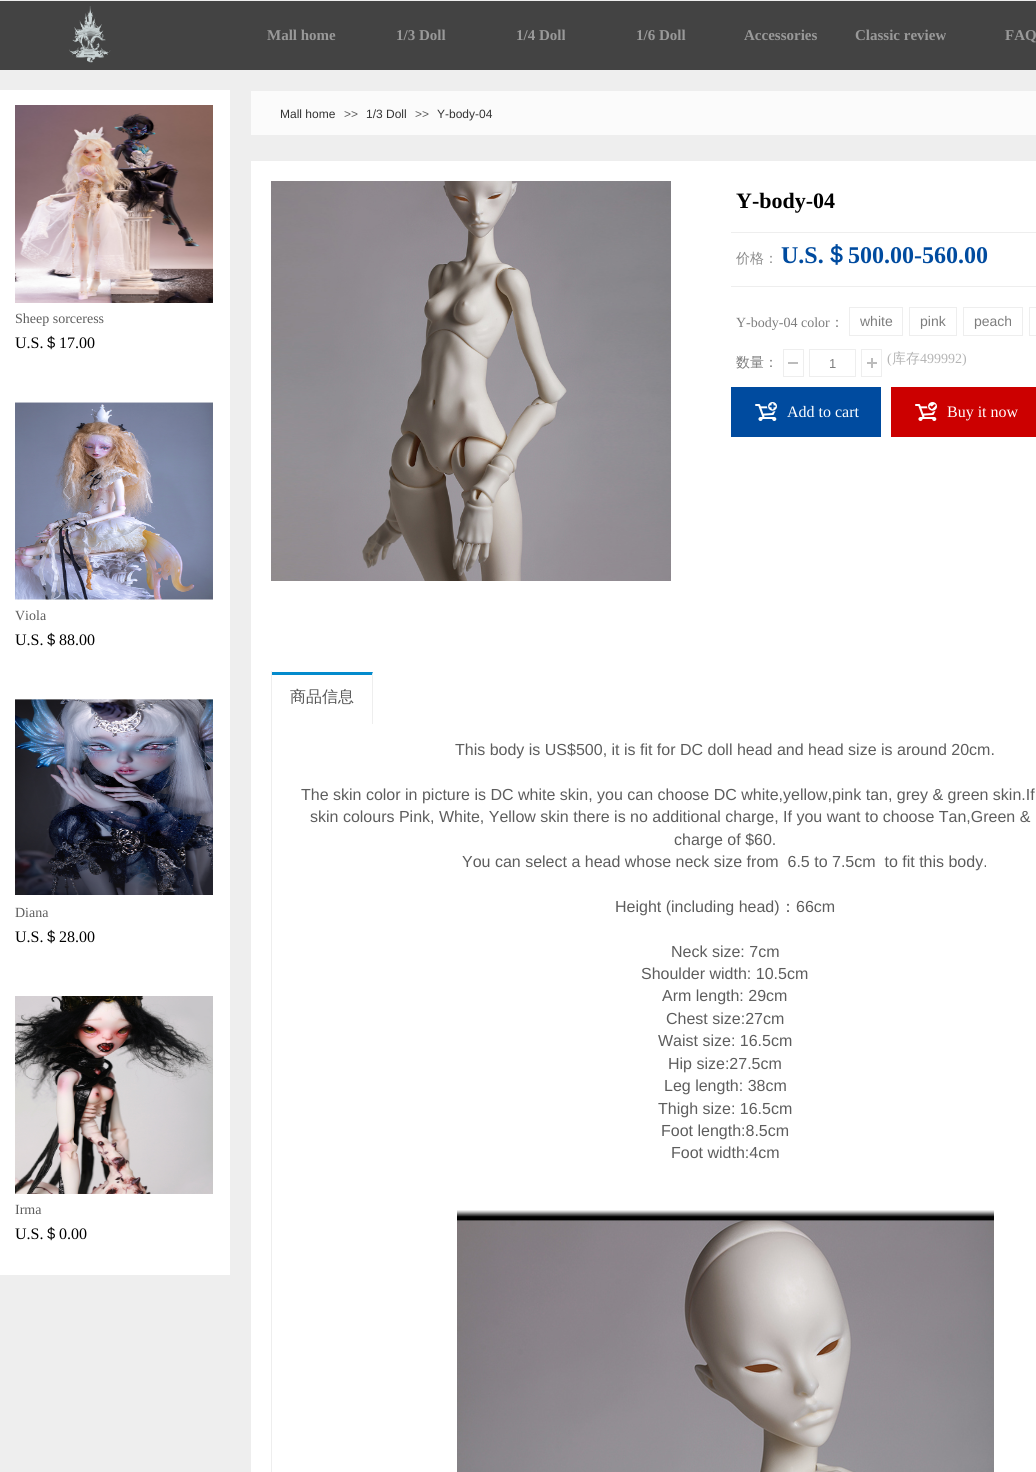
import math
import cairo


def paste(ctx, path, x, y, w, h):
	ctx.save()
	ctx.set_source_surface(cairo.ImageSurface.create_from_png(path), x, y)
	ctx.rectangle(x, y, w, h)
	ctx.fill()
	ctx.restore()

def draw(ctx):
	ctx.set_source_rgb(0.933, 0.933, 0.933)
	ctx.paint()
	ctx.set_source_rgb(0.263, 0.263, 0.263)
	ctx.rectangle(0, 1, 1036, 69)
	ctx.fill()
	paste(ctx, 'media/1.png', 69, 6, 42, 57)
	ctx.select_font_face('Liberation Serif', cairo.FONT_SLANT_NORMAL, cairo.FONT_WEIGHT_BOLD)
	ctx.set_font_size(15)
	ctx.set_source_rgb(0.6, 0.6, 0.6)
	for x, y, s in [
		(267, 40, 'Mall home'),
		(396, 40, '1/3 Doll'),
		(516, 40, '1/4 Doll'),
		(636, 40, '1/6 Doll'),
		(744, 40, 'Accessories'),
		(855, 40, 'Classic review'),
		(1005, 40, 'FAQ'),
	]:
		ctx.move_to(x, y)
		ctx.show_text(s)
	ctx.set_source_rgb(1, 1, 1)
	ctx.rectangle(0, 90, 230, 1185)
	ctx.fill()
	paste(ctx, 'media/2.png', 15, 105, 198, 198)
	ctx.select_font_face('Liberation Serif')
	ctx.set_font_size(14)
	ctx.set_source_rgb(0.365, 0.365, 0.365)
	ctx.move_to(15, 323)
	ctx.show_text('Sheep sorceress')
	ctx.set_font_size(16)
	ctx.set_source_rgb(0, 0, 0)
	ctx.move_to(15, 348)
	ctx.show_text('U.S.')
	ctx.select_font_face('WenQuanYi Zen Hei Medium')
	ctx.move_to(43, 348)
	ctx.show_text('＄')
	ctx.select_font_face('Liberation Serif')
	ctx.move_to(59, 348)
	ctx.show_text('17.00')
	paste(ctx, 'media/3.png', 15, 402, 198, 198)
	ctx.set_font_size(14)
	ctx.set_source_rgb(0.365, 0.365, 0.365)
	ctx.move_to(15, 620)
	ctx.show_text('Viola')
	ctx.set_font_size(16)
	ctx.set_source_rgb(0, 0, 0)
	ctx.move_to(15, 645)
	ctx.show_text('U.S.')
	ctx.select_font_face('WenQuanYi Zen Hei Medium')
	ctx.move_to(43, 645)
	ctx.show_text('＄')
	ctx.select_font_face('Liberation Serif')
	ctx.move_to(59, 645)
	ctx.show_text('88.00')
	paste(ctx, 'media/4.png', 15, 699, 198, 196)
	ctx.set_font_size(14)
	ctx.set_source_rgb(0.365, 0.365, 0.365)
	ctx.move_to(15, 917)
	ctx.show_text('Diana')
	ctx.set_font_size(16)
	ctx.set_source_rgb(0, 0, 0)
	ctx.move_to(15, 942)
	ctx.show_text('U.S.')
	ctx.select_font_face('WenQuanYi Zen Hei Medium')
	ctx.move_to(43, 942)
	ctx.show_text('＄')
	ctx.select_font_face('Liberation Serif')
	ctx.move_to(59, 942)
	ctx.show_text('28.00')
	paste(ctx, 'media/5.png', 15, 996, 198, 198)
	ctx.set_font_size(14)
	ctx.set_source_rgb(0.365, 0.365, 0.365)
	ctx.move_to(15, 1214)
	ctx.show_text('Irma')
	ctx.set_font_size(16)
	ctx.set_source_rgb(0, 0, 0)
	ctx.move_to(15, 1239)
	ctx.show_text('U.S.')
	ctx.select_font_face('WenQuanYi Zen Hei Medium')
	ctx.move_to(43, 1239)
	ctx.show_text('＄')
	ctx.select_font_face('Liberation Serif')
	ctx.move_to(59, 1239)
	ctx.show_text('0.00')
	ctx.set_source_rgb(0.984, 0.984, 0.984)
	ctx.rectangle(251, 91, 785, 44)
	ctx.fill()
	ctx.select_font_face('Liberation Sans')
	ctx.set_font_size(12)
	ctx.set_source_rgb(0.2, 0.2, 0.2)
	ctx.move_to(280, 118)
	ctx.show_text('Mall home')
	ctx.set_source_rgb(0.365, 0.365, 0.365)
	ctx.move_to(344, 118)
	ctx.show_text('>>')
	ctx.set_source_rgb(0.2, 0.2, 0.2)
	ctx.move_to(366, 118)
	ctx.show_text('1/3 Doll')
	ctx.set_source_rgb(0.365, 0.365, 0.365)
	ctx.move_to(415, 118)
	ctx.show_text('>>')
	ctx.set_source_rgb(0.2, 0.2, 0.2)
	ctx.move_to(437, 118)
	ctx.show_text('Y-body-04')
	ctx.set_source_rgb(1, 1, 1)
	ctx.rectangle(251, 161, 785, 1311)
	ctx.fill()
	paste(ctx, 'media/6.png', 271, 181, 400, 400)
	ctx.set_source_rgb(0.933, 0.933, 0.933)
	ctx.rectangle(731, 232, 305, 1)
	ctx.fill()
	ctx.select_font_face('Liberation Serif', cairo.FONT_SLANT_NORMAL, cairo.FONT_WEIGHT_BOLD)
	ctx.set_font_size(22)
	ctx.set_source_rgb(0, 0, 0)
	ctx.move_to(736, 208)
	ctx.show_text('Y-body-04')
	ctx.set_source_rgb(0.933, 0.933, 0.933)
	ctx.rectangle(731, 286, 305, 1)
	ctx.fill()
	ctx.select_font_face('WenQuanYi Zen Hei Medium')
	ctx.set_font_size(14)
	ctx.set_source_rgb(0.553, 0.553, 0.553)
	ctx.move_to(736, 263)
	ctx.show_text('价格：')
	ctx.select_font_face('Liberation Serif', cairo.FONT_SLANT_NORMAL, cairo.FONT_WEIGHT_BOLD)
	ctx.set_font_size(24)
	ctx.set_source_rgb(0, 0.294, 0.624)
	ctx.move_to(781, 263)
	ctx.show_text('U.S.')
	ctx.select_font_face('WenQuanYi Zen Hei', cairo.FONT_SLANT_NORMAL, cairo.FONT_WEIGHT_BOLD)
	ctx.move_to(824, 263)
	ctx.show_text('＄')
	ctx.select_font_face('Liberation Serif', cairo.FONT_SLANT_NORMAL, cairo.FONT_WEIGHT_BOLD)
	ctx.move_to(848, 263)
	ctx.show_text('500.00-560.00')
	ctx.select_font_face('Liberation Serif')
	ctx.set_font_size(14)
	ctx.set_source_rgb(0.49, 0.49, 0.49)
	ctx.move_to(736, 327)
	ctx.show_text('Y-body-04 color')
	ctx.select_font_face('WenQuanYi Zen Hei Medium')
	ctx.move_to(830, 327)
	ctx.show_text('：')
	ctx.rectangle(849.5, 307.5, 53, 28)
	ctx.set_source_rgb(0.933, 0.933, 0.933)
	ctx.set_line_width(1)
	ctx.stroke()
	ctx.select_font_face('Liberation Sans')
	ctx.set_source_rgb(0.49, 0.49, 0.49)
	ctx.move_to(860, 326)
	ctx.show_text('white')
	ctx.rectangle(909.5, 307.5, 47, 28)
	ctx.set_source_rgb(0.933, 0.933, 0.933)
	ctx.stroke()
	ctx.set_source_rgb(0.49, 0.49, 0.49)
	ctx.move_to(920, 326)
	ctx.show_text('pink')
	ctx.rectangle(963.5, 307.5, 59, 28)
	ctx.set_source_rgb(0.933, 0.933, 0.933)
	ctx.stroke()
	ctx.set_source_rgb(0.49, 0.49, 0.49)
	ctx.move_to(974, 326)
	ctx.show_text('peach')
	ctx.rectangle(1029.5, 307.5, 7, 28)
	ctx.set_source_rgb(0.933, 0.933, 0.933)
	ctx.stroke()
	ctx.select_font_face('WenQuanYi Zen Hei Medium')
	ctx.set_source_rgb(0.49, 0.49, 0.49)
	ctx.move_to(736, 367)
	ctx.show_text('数量：')
	ctx.set_source_rgb(0.737, 0.737, 0.737)
	ctx.rectangle(788, 362, 10, 2)
	ctx.fill()
	ctx.rectangle(783.5, 349.5, 20, 27)
	ctx.set_source_rgb(0.933, 0.933, 0.933)
	ctx.stroke()
	ctx.rectangle(809.5, 349.5, 46, 27)
	ctx.stroke()
	ctx.select_font_face('Liberation Sans')
	ctx.set_font_size(13)
	ctx.set_source_rgb(0.49, 0.49, 0.49)
	ctx.move_to(829, 368)
	ctx.show_text('1')
	paste(ctx, 'media/7.png', 867, 358, 10, 10)
	ctx.rectangle(861.5, 349.5, 20, 27)
	ctx.set_source_rgb(0.933, 0.933, 0.933)
	ctx.stroke()
	ctx.select_font_face('Liberation Serif')
	ctx.set_font_size(14)
	ctx.set_source_rgb(0.71, 0.71, 0.71)
	ctx.move_to(887, 363)
	ctx.show_text('(')
	ctx.select_font_face('WenQuanYi Zen Hei Medium')
	ctx.move_to(892, 363)
	ctx.show_text('库存')
	ctx.select_font_face('Liberation Serif')
	ctx.move_to(920, 363)
	ctx.show_text('499992)')
	ctx.set_source_rgb(0, 0.294, 0.624)
	ctx.rectangle(731, 387, 150, 50)
	ctx.fill()
	paste(ctx, 'media/8.png', 755, 402, 22, 19)
	ctx.set_font_size(16)
	ctx.set_source_rgb(1, 1, 1)
	ctx.move_to(787, 417)
	ctx.show_text('Add to cart')
	ctx.set_source_rgb(0.8, 0, 0)
	ctx.rectangle(891, 387, 145, 50)
	ctx.fill()
	paste(ctx, 'media/9.png', 915, 402, 22, 19)
	ctx.set_source_rgb(1, 1, 1)
	ctx.move_to(947, 417)
	ctx.show_text('Buy it now')
	ctx.set_source_rgb(0.933, 0.933, 0.933)
	ctx.rectangle(271, 671, 1, 801)
	ctx.fill()
	ctx.set_source_rgb(0.016, 0.545, 0.804)
	ctx.new_path()
	ctx.move_to(272, 672)
	ctx.line_to(373, 672)
	ctx.line_to(372, 675)
	ctx.line_to(272, 675)
	ctx.close_path()
	ctx.fill()
	ctx.save()
	ctx.rectangle(272, 671, 764, 53)
	ctx.clip()
	ctx.set_source_rgb(0.933, 0.933, 0.933)
	ctx.new_path()
	ctx.move_to(373, 672)
	ctx.line_to(373, 727)
	ctx.line_to(372, 727)
	ctx.line_to(372, 675)
	ctx.close_path()
	ctx.fill()
	ctx.restore()
	ctx.select_font_face('WenQuanYi Zen Hei Medium')
	ctx.set_source_rgb(0.325, 0.325, 0.325)
	ctx.move_to(290, 702)
	ctx.show_text('商品信息')
	ctx.select_font_face('Liberation Sans')
	ctx.set_source_rgb(0.365, 0.365, 0.365)
	for x, y, s in [
		(455, 755, 'This body is US$500, it is fit for DC doll head and head size is around 20cm.'),
		(301, 800, 'The skin color in picture is DC white skin, you can choose DC white,yellow,pink tan, grey & green skin.If'),
		(310, 822, 'skin colours Pink, White, Yellow skin there is no additional charge, If you want to choose Tan,Green &'),
		(674, 845, 'charge of $60.'),
		(462, 867, 'You can select a head whose neck size from  6.5 to 7.5cm  to fit this body.'),
		(615, 912, 'Height (including head)'),
	]:
		ctx.move_to(x, y)
		ctx.show_text(s)
	ctx.select_font_face('WenQuanYi Zen Hei Medium')
	ctx.move_to(780, 912)
	ctx.show_text('：')
	ctx.select_font_face('Liberation Sans')
	for x, y, s in [
		(796, 912, '66cm'),
		(671, 957, 'Neck size: 7cm'),
		(641, 979, 'Shoulder width: 10.5cm'),
		(662, 1001, 'Arm length: 29cm'),
		(666, 1024, 'Chest size:27cm'),
		(658, 1046, 'Waist size: 16.5cm'),
		(668, 1069, 'Hip size:27.5cm'),
		(664, 1091, 'Leg length: 38cm'),
		(658, 1114, 'Thigh size: 16.5cm'),
		(661, 1136, 'Foot length:8.5cm'),
		(671, 1158, 'Foot width:4cm'),
	]:
		ctx.move_to(x, y)
		ctx.show_text(s)
	paste(ctx, 'media/10.png', 457, 1210, 537, 262)


surface = cairo.ImageSurface(cairo.FORMAT_RGB24, 1036, 1472)
ctx = cairo.Context(surface)
options = cairo.FontOptions()
options.set_hint_metrics(cairo.HINT_METRICS_OFF)
options.set_hint_style(cairo.HINT_STYLE_NONE)
ctx.set_font_options(options)
ctx.set_miter_limit(4)
draw(ctx)
surface.write_to_png('image.png')
